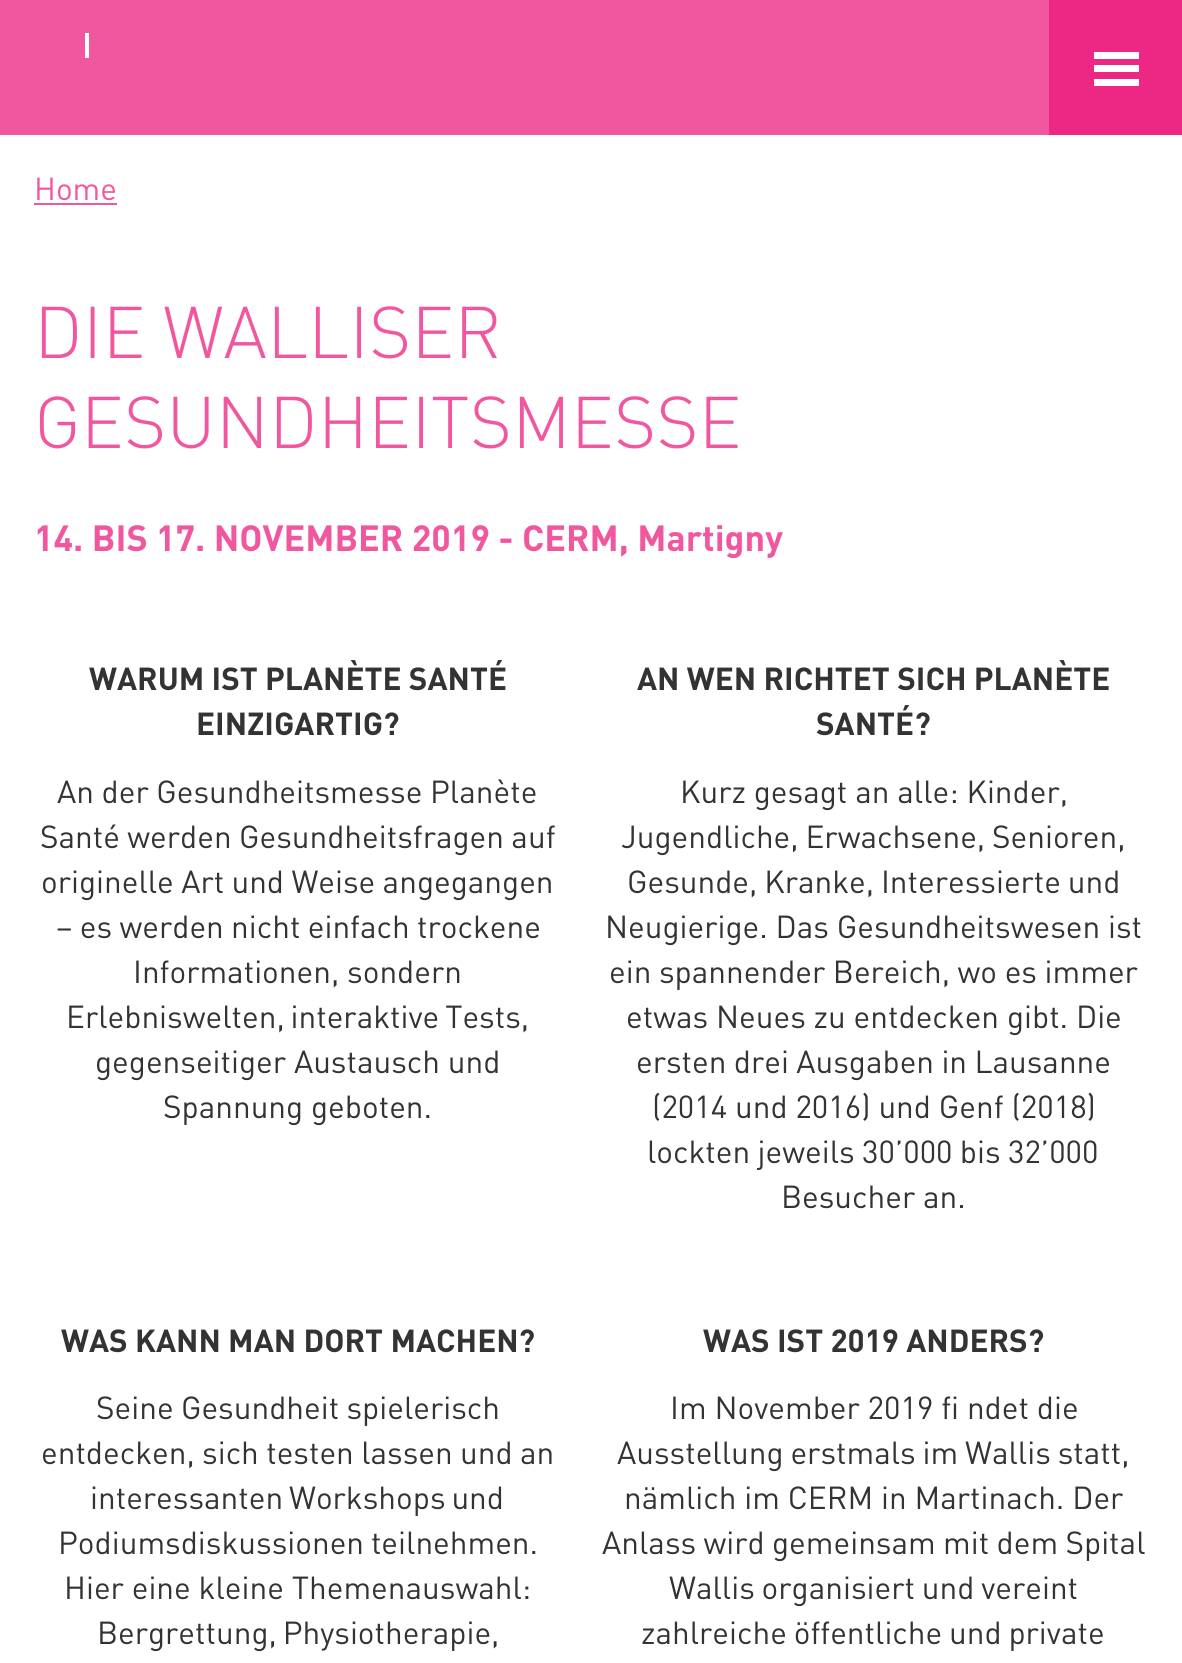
import math
import cairo


def write_spaced(ctx, x, y, s, letter, word):
	ctx.move_to(x, y)
	for ch in s:
		ctx.show_text(ch)
		ctx.rel_move_to(letter + word * (ch == ' '), 0)

def draw(ctx):
	ctx.set_source_rgb(1, 1, 1)
	ctx.paint()
	ctx.set_source_rgb(0.945, 0.341, 0.624)
	ctx.rectangle(0, 0, 1049, 135)
	ctx.fill()
	ctx.set_source_rgb(1, 1, 1)
	ctx.rectangle(85, 33, 4, 25)
	ctx.fill()
	ctx.set_source_rgb(0.929, 0.157, 0.518)
	ctx.rectangle(1049, 0, 133, 135)
	ctx.fill()
	ctx.set_source_rgb(1, 1, 1)
	ctx.rectangle(1094, 65, 45, 7)
	ctx.rectangle(1094, 52, 45, 7)
	ctx.rectangle(1094, 79, 45, 7)
	ctx.fill()
	ctx.select_font_face('DIN')
	ctx.set_font_size(31.5)
	ctx.set_source_rgb(0.945, 0.341, 0.624)
	ctx.move_to(34, 200)
	ctx.show_text('Home')
	ctx.rectangle(34, 203, 83, 2)
	ctx.fill()
	ctx.select_font_face('DIN Light')
	ctx.set_font_size(72)
	write_spaced(ctx, 34, 358, 'DIE WALLISER', 0, -1)
	ctx.move_to(34, 448)
	ctx.show_text('GESUNDHEITSMESSE')
	ctx.select_font_face('DIN', cairo.FONT_SLANT_NORMAL, cairo.FONT_WEIGHT_BOLD)
	ctx.set_font_size(36)
	ctx.move_to(34, 551)
	ctx.show_text('14. BIS 17. NOVEMBER 2019 - CERM, Martigny')
	ctx.set_font_size(31.5)
	ctx.set_source_rgb(0.2, 0.2, 0.2)
	ctx.move_to(89, 690)
	ctx.show_text('WARUM IST PLANÈTE SANTÉ')
	ctx.move_to(196, 735)
	ctx.show_text('EINZIGARTIG?')
	ctx.select_font_face('DIN')
	write_spaced(ctx, 57, 803, 'An der Gesundheitsmesse Planète', 0, -0.25)
	for x, y, s in [
		(40, 848, 'Santé werden Gesundheitsfragen auf'),
		(41, 893, 'originelle Art und Weise angegangen'),
		(56, 938, '– es werden nicht einfach trockene'),
	]:
		write_spaced(ctx, x, y, s, 0, -0.5)
	ctx.move_to(133, 983)
	ctx.show_text('Informationen, sondern')
	write_spaced(ctx, 66, 1028, 'Erlebniswelten, interaktive Tests,', 0, -2)
	ctx.move_to(95, 1073)
	ctx.show_text('gegenseitiger Austausch und')
	ctx.move_to(163, 1118)
	ctx.show_text('Spannung geboten.')
	ctx.select_font_face('DIN', cairo.FONT_SLANT_NORMAL, cairo.FONT_WEIGHT_BOLD)
	ctx.move_to(637, 690)
	ctx.show_text('AN WEN RICHTET SICH PLANÈTE')
	ctx.move_to(816, 735)
	ctx.show_text('SANTÉ?')
	ctx.select_font_face('DIN')
	ctx.move_to(680, 803)
	ctx.show_text('Kurz gesagt an alle: Kinder,')
	write_spaced(ctx, 621, 848, 'Jugendliche, Erwachsene, Senioren,', 0, -1)
	write_spaced(ctx, 627, 893, 'Gesunde, Kranke, Interessierte und', 0, -1)
	ctx.move_to(605, 938)
	ctx.show_text('Neugierige. Das Gesundheitswesen ist')
	write_spaced(ctx, 609, 983, 'ein spannender Bereich, wo es immer', 0, -0.25)
	ctx.move_to(626, 1028)
	ctx.show_text('etwas Neues zu entdecken gibt. Die')
	write_spaced(ctx, 636, 1073, 'ersten drei Ausgaben in Lausanne', 0, -0.5)
	ctx.move_to(652, 1118)
	ctx.show_text('(2014 und 2016) und Genf (2018)')
	write_spaced(ctx, 647, 1163, 'lockten jeweils 30’000 bis 32’000', 0, -0.5)
	ctx.move_to(781, 1208)
	ctx.show_text('Besucher an.')
	ctx.select_font_face('DIN', cairo.FONT_SLANT_NORMAL, cairo.FONT_WEIGHT_BOLD)
	ctx.move_to(61, 1352)
	ctx.show_text('WAS KANN MAN DORT MACHEN?')
	ctx.select_font_face('DIN')
	write_spaced(ctx, 96, 1419, 'Seine Gesundheit spielerisch', 0, -0.5)
	write_spaced(ctx, 41, 1464, 'entdecken, sich testen lassen und an', 0, -0.5)
	write_spaced(ctx, 90, 1509, 'interessanten Workshops und', 0, -2)
	write_spaced(ctx, 58, 1554, 'Podiumsdiskussionen teilnehmen.', 0, -1)
	ctx.move_to(64, 1599)
	ctx.show_text('Hier eine kleine Themenauswahl:')
	write_spaced(ctx, 97, 1644, 'Bergrettung, Physiotherapie,', 0, -2)
	ctx.select_font_face('DIN', cairo.FONT_SLANT_NORMAL, cairo.FONT_WEIGHT_BOLD)
	ctx.move_to(703, 1352)
	ctx.show_text('WAS IST 2019 ANDERS?')
	ctx.select_font_face('DIN')
	ctx.move_to(670, 1419)
	ctx.show_text('Im November 2019 fi ndet die')
	write_spaced(ctx, 617, 1464, 'Ausstellung erstmals im Wallis statt,', 0, -1)
	ctx.move_to(624, 1509)
	ctx.show_text('nämlich im CERM in Martinach. Der')
	write_spaced(ctx, 602, 1554, 'Anlass wird gemeinsam mit dem Spital', 0, -0.5)
	write_spaced(ctx, 669, 1599, 'Wallis organisiert und vereint', 0, -1)
	write_spaced(ctx, 641, 1644, 'zahlreiche öffentliche und private', 0, -1)


surface = cairo.ImageSurface(cairo.FORMAT_RGB24, 1182, 1663)
ctx = cairo.Context(surface)
options = cairo.FontOptions()
options.set_hint_metrics(cairo.HINT_METRICS_OFF)
options.set_hint_style(cairo.HINT_STYLE_NONE)
ctx.set_font_options(options)
ctx.set_miter_limit(4)
draw(ctx)
surface.write_to_png('image.png')
